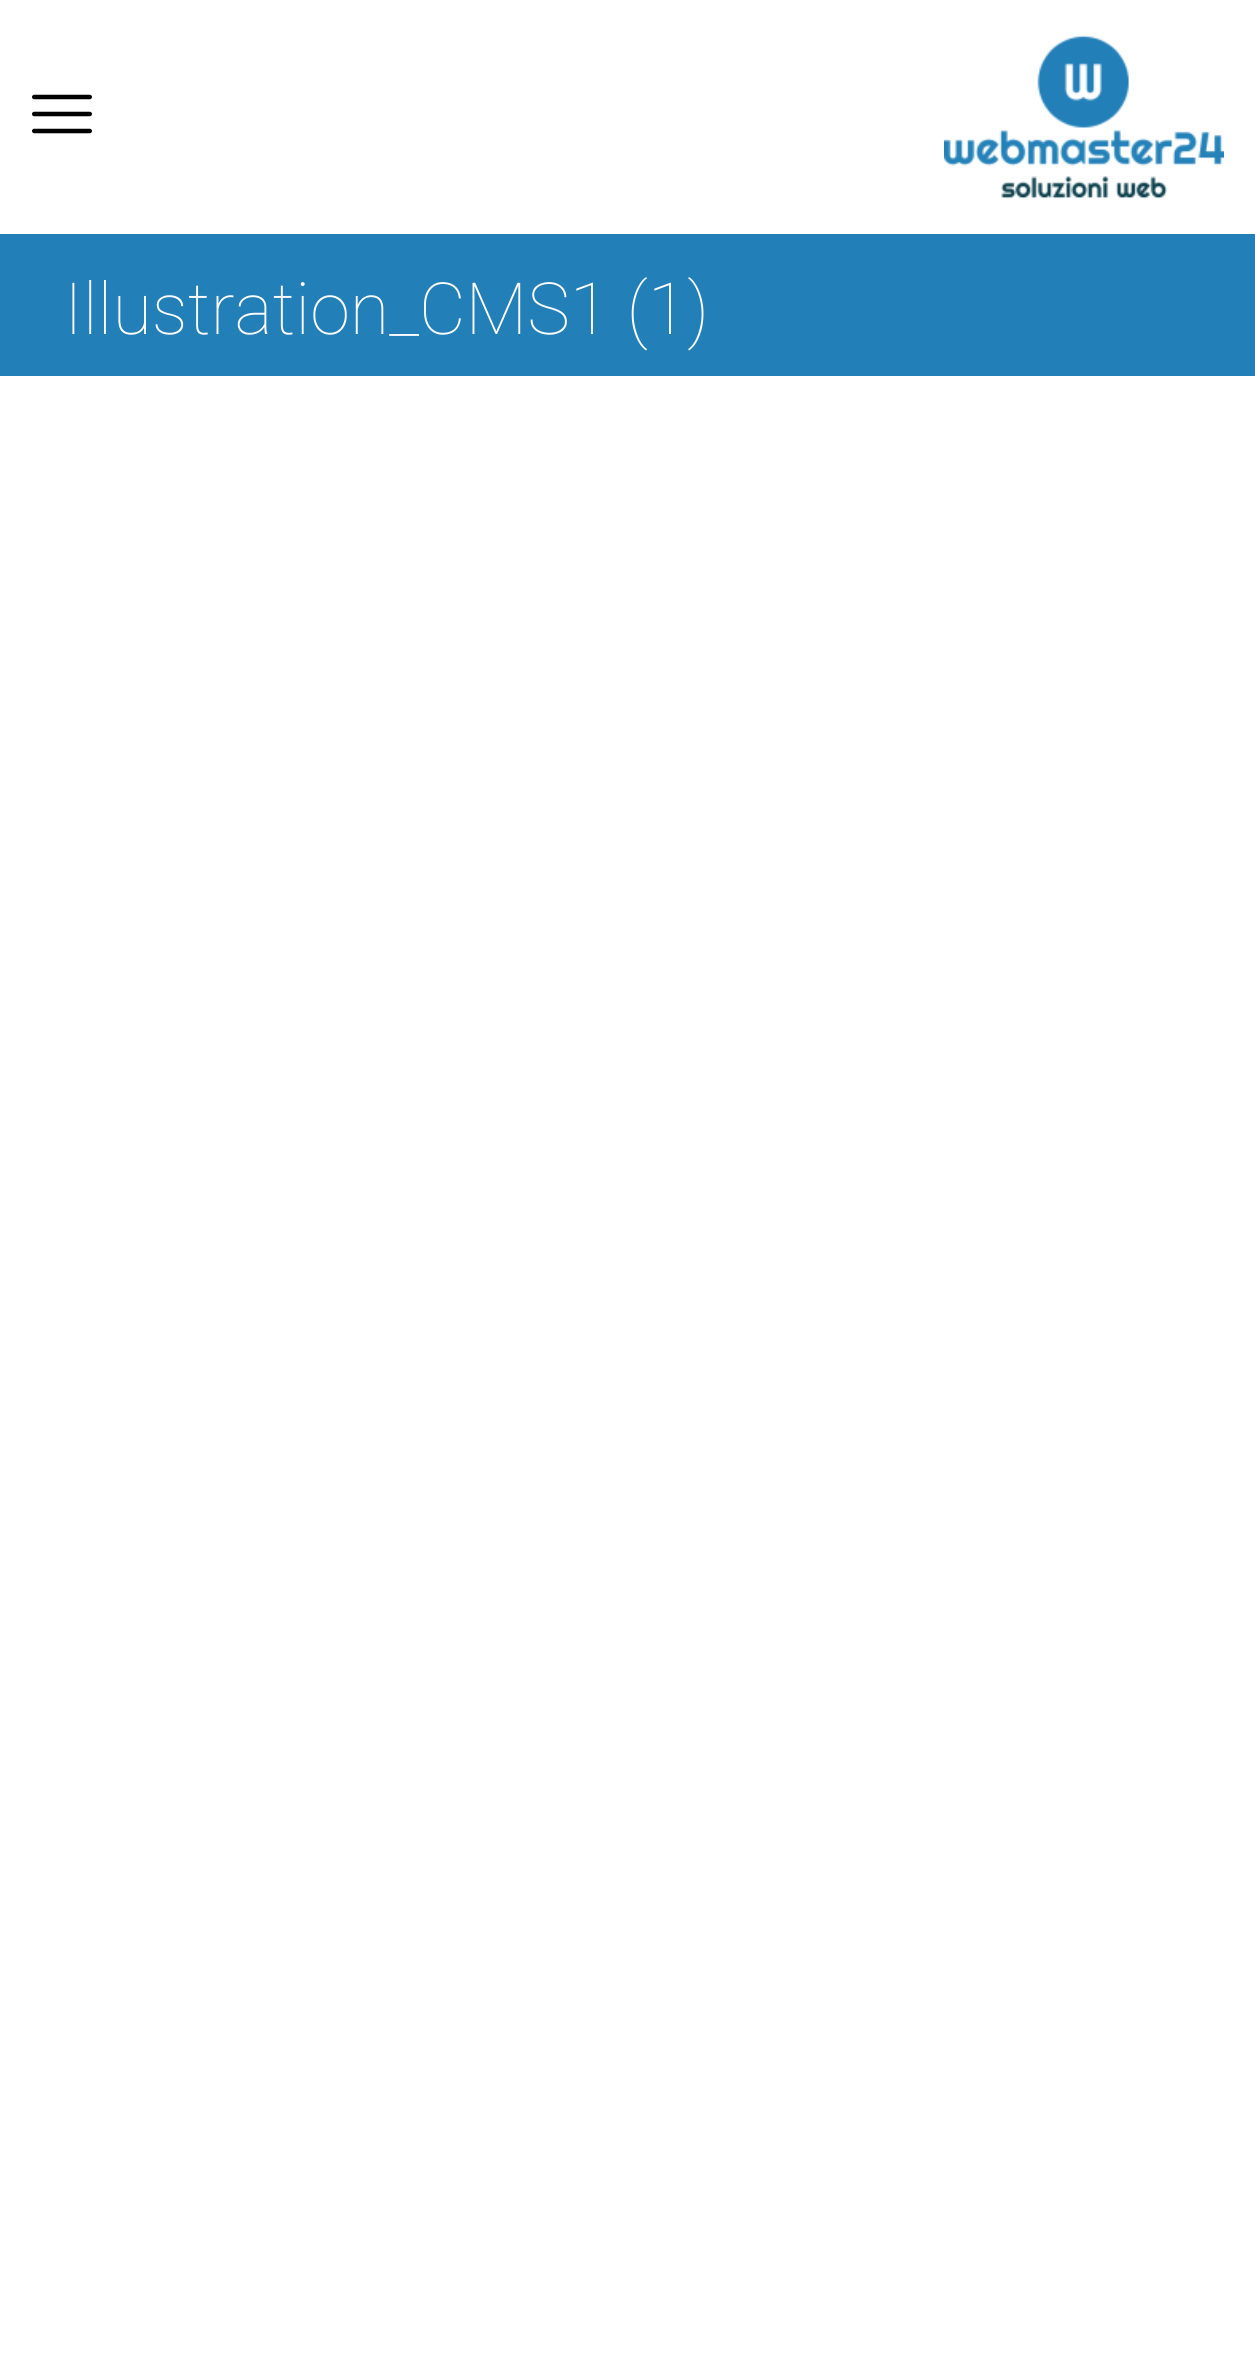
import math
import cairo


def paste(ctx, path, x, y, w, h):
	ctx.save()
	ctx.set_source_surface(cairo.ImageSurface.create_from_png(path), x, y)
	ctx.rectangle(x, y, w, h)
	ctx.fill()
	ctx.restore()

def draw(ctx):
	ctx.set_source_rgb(1, 1, 1)
	ctx.paint()
	paste(ctx, 'media/1.png', 32, 94, 60, 40)
	paste(ctx, 'media/2.png', 944, 35, 280, 164)
	ctx.set_source_rgb(0.137, 0.498, 0.722)
	ctx.rectangle(0, 234, 1255, 142)
	ctx.fill()
	ctx.select_font_face('Roboto Thin')
	ctx.set_font_size(72)
	ctx.set_source_rgb(1, 1, 1)
	ctx.move_to(64, 334)
	ctx.show_text('Illustration_CMS1 (1)')


surface = cairo.ImageSurface(cairo.FORMAT_RGB24, 1255, 2365)
ctx = cairo.Context(surface)
options = cairo.FontOptions()
options.set_hint_metrics(cairo.HINT_METRICS_OFF)
options.set_hint_style(cairo.HINT_STYLE_NONE)
ctx.set_font_options(options)
ctx.set_miter_limit(4)
draw(ctx)
surface.write_to_png('image.png')
